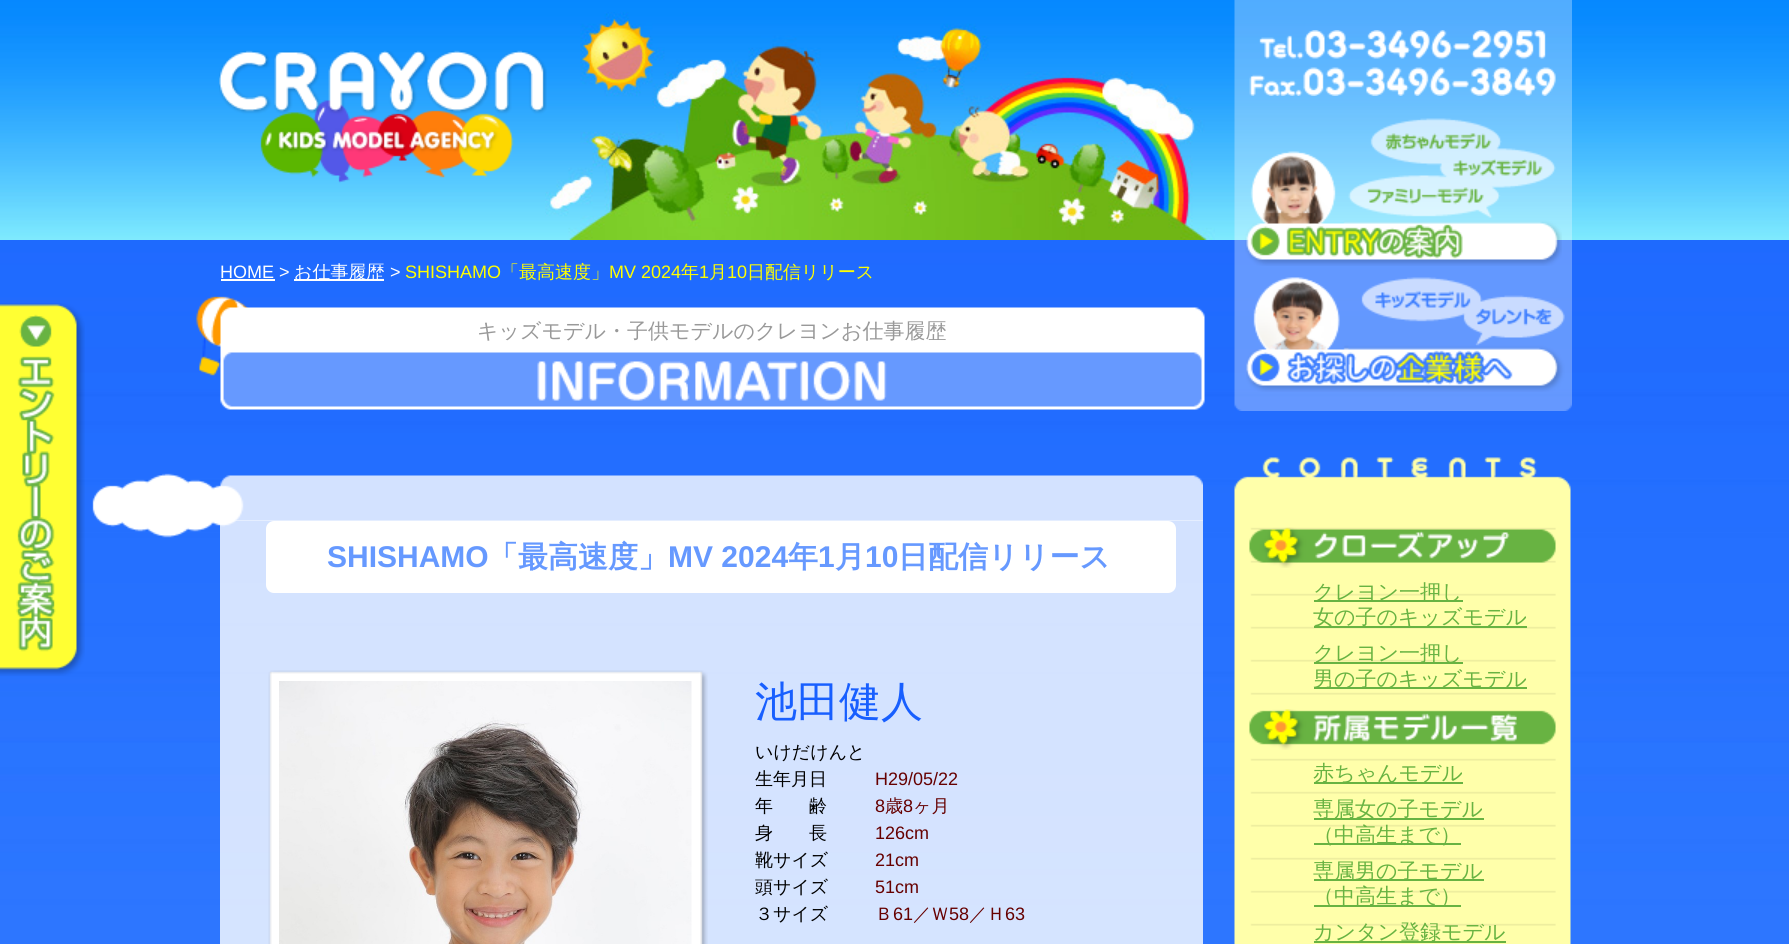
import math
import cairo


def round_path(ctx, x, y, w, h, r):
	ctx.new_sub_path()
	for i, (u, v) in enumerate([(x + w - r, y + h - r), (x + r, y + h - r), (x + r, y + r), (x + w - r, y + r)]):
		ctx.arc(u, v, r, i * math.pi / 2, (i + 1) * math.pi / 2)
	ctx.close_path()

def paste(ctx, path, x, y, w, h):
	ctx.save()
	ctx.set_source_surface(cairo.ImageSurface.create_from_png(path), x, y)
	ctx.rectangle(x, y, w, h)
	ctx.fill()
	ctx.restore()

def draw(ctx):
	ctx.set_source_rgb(1, 1, 1)
	ctx.paint()
	paste(ctx, 'media/1.png', 0, 240, 1789, 704)
	paste(ctx, 'media/2.png', 0, 0, 1789, 240)
	paste(ctx, 'media/3.png', 545, 12, 670, 228)
	paste(ctx, 'media/4.png', 219, 50, 328, 133)
	paste(ctx, 'media/5.png', 1234, 0, 338, 411)
	paste(ctx, 'media/6.png', 1249, 30, 307, 66)
	paste(ctx, 'media/7.png', 1245, 118, 317, 148)
	paste(ctx, 'media/8.png', 1246, 277, 319, 115)
	paste(ctx, 'media/9.png', 0, 303, 85, 373)
	paste(ctx, 'media/10.png', 92, 296, 156, 242)
	ctx.select_font_face('Liberation Sans')
	ctx.set_font_size(18)
	ctx.set_source_rgb(1, 1, 1)
	ctx.move_to(220, 278)
	ctx.show_text('HOME >')
	ctx.rectangle(221, 279, 54, 2)
	ctx.fill()
	ctx.rectangle(294, 279, 90, 2)
	ctx.fill()
	ctx.select_font_face('WenQuanYi Zen Hei Medium')
	ctx.move_to(294, 278)
	ctx.show_text('お仕事履歴')
	ctx.select_font_face('Liberation Sans')
	ctx.move_to(390, 278)
	ctx.show_text('>')
	ctx.set_source_rgb(1, 1, 0)
	ctx.move_to(405, 278)
	ctx.show_text('SHISHAMO')
	ctx.select_font_face('WenQuanYi Zen Hei Medium')
	ctx.move_to(501, 278)
	ctx.show_text('「最高速度」')
	ctx.select_font_face('Liberation Sans')
	ctx.move_to(609, 278)
	ctx.show_text('MV 2024')
	ctx.select_font_face('WenQuanYi Zen Hei Medium')
	ctx.move_to(681, 278)
	ctx.show_text('年')
	ctx.select_font_face('Liberation Sans')
	ctx.move_to(699, 278)
	ctx.show_text('1')
	ctx.select_font_face('WenQuanYi Zen Hei Medium')
	ctx.move_to(709, 278)
	ctx.show_text('月')
	ctx.select_font_face('Liberation Sans')
	ctx.move_to(727, 278)
	ctx.show_text('10')
	ctx.select_font_face('WenQuanYi Zen Hei Medium')
	ctx.move_to(747, 278)
	ctx.show_text('日配信リリース')
	paste(ctx, 'media/11.png', 220, 307, 985, 103)
	ctx.set_font_size(21)
	ctx.set_source_rgb(0.6, 0.6, 0.6)
	ctx.move_to(477, 338)
	ctx.show_text('キッズモデル・子供モデルのクレヨンお仕事履歴')
	paste(ctx, 'media/12.png', 220, 475, 983, 46)
	ctx.set_source_rgba(1, 1, 1, 0.8)
	ctx.rectangle(220, 520, 983, 424)
	ctx.fill()
	ctx.set_source_rgb(1, 1, 1)
	round_path(ctx, 266, 521, 910, 72, 8)
	ctx.fill()
	ctx.select_font_face('Liberation Sans', cairo.FONT_SLANT_NORMAL, cairo.FONT_WEIGHT_BOLD)
	ctx.set_font_size(30)
	ctx.set_source_rgb(0.4, 0.6, 1)
	ctx.move_to(327, 567)
	ctx.show_text('SHISHAMO')
	ctx.select_font_face('WenQuanYi Zen Hei', cairo.FONT_SLANT_NORMAL, cairo.FONT_WEIGHT_BOLD)
	ctx.move_to(488, 567)
	ctx.show_text('「最高速度」')
	ctx.select_font_face('Liberation Sans', cairo.FONT_SLANT_NORMAL, cairo.FONT_WEIGHT_BOLD)
	ctx.move_to(668, 567)
	ctx.show_text('MV 2024')
	ctx.select_font_face('WenQuanYi Zen Hei', cairo.FONT_SLANT_NORMAL, cairo.FONT_WEIGHT_BOLD)
	ctx.move_to(788, 567)
	ctx.show_text('年')
	ctx.select_font_face('Liberation Sans', cairo.FONT_SLANT_NORMAL, cairo.FONT_WEIGHT_BOLD)
	ctx.move_to(818, 567)
	ctx.show_text('1')
	ctx.select_font_face('WenQuanYi Zen Hei', cairo.FONT_SLANT_NORMAL, cairo.FONT_WEIGHT_BOLD)
	ctx.move_to(835, 567)
	ctx.show_text('月')
	ctx.select_font_face('Liberation Sans', cairo.FONT_SLANT_NORMAL, cairo.FONT_WEIGHT_BOLD)
	ctx.move_to(865, 567)
	ctx.show_text('10')
	ctx.select_font_face('WenQuanYi Zen Hei', cairo.FONT_SLANT_NORMAL, cairo.FONT_WEIGHT_BOLD)
	ctx.move_to(898, 567)
	ctx.show_text('日配信リリース')
	paste(ctx, 'media/13.png', 268, 670, 440, 274)
	paste(ctx, 'media/14.png', 279, 681, 413, 263)
	ctx.select_font_face('WenQuanYi Zen Hei Medium')
	ctx.set_font_size(42)
	ctx.set_source_rgb(0.094, 0.373, 1)
	ctx.move_to(755, 716)
	ctx.show_text('池田健人')
	ctx.set_font_size(18)
	ctx.set_source_rgb(0, 0, 0)
	ctx.move_to(755, 758)
	ctx.show_text('いけだけんと')
	ctx.move_to(755, 785)
	ctx.show_text('生年月日')
	ctx.select_font_face('Liberation Sans')
	ctx.set_source_rgb(0.4, 0, 0)
	ctx.move_to(875, 785)
	ctx.show_text('H29/05/22')
	ctx.select_font_face('WenQuanYi Zen Hei Medium')
	ctx.set_source_rgb(0, 0, 0)
	ctx.move_to(755, 812)
	ctx.show_text('年　　齢')
	ctx.select_font_face('Liberation Sans')
	ctx.set_source_rgb(0.4, 0, 0)
	ctx.move_to(875, 812)
	ctx.show_text('8')
	ctx.select_font_face('WenQuanYi Zen Hei Medium')
	ctx.move_to(885, 812)
	ctx.show_text('歳')
	ctx.select_font_face('Liberation Sans')
	ctx.move_to(903, 812)
	ctx.show_text('8')
	ctx.select_font_face('WenQuanYi Zen Hei Medium')
	ctx.move_to(913, 812)
	ctx.show_text('ヶ月')
	ctx.set_source_rgb(0, 0, 0)
	ctx.move_to(755, 839)
	ctx.show_text('身　　長')
	ctx.select_font_face('Liberation Sans')
	ctx.set_source_rgb(0.4, 0, 0)
	ctx.move_to(875, 839)
	ctx.show_text('126cm')
	ctx.select_font_face('WenQuanYi Zen Hei Medium')
	ctx.set_source_rgb(0, 0, 0)
	ctx.move_to(755, 866)
	ctx.show_text('靴サイズ')
	ctx.select_font_face('Liberation Sans')
	ctx.set_source_rgb(0.4, 0, 0)
	ctx.move_to(875, 866)
	ctx.show_text('21cm')
	ctx.select_font_face('WenQuanYi Zen Hei Medium')
	ctx.set_source_rgb(0, 0, 0)
	ctx.move_to(755, 893)
	ctx.show_text('頭サイズ')
	ctx.select_font_face('Liberation Sans')
	ctx.set_source_rgb(0.4, 0, 0)
	ctx.move_to(875, 893)
	ctx.show_text('51cm')
	ctx.select_font_face('WenQuanYi Zen Hei Medium')
	ctx.set_source_rgb(0, 0, 0)
	ctx.move_to(755, 920)
	ctx.show_text('３サイズ')
	ctx.set_source_rgb(0.4, 0, 0)
	ctx.move_to(875, 920)
	ctx.show_text('Ｂ')
	ctx.select_font_face('Liberation Sans')
	ctx.move_to(893, 920)
	ctx.show_text('61')
	ctx.select_font_face('WenQuanYi Zen Hei Medium')
	ctx.move_to(913, 920)
	ctx.show_text('／Ｗ')
	ctx.select_font_face('Liberation Sans')
	ctx.move_to(949, 920)
	ctx.show_text('58')
	ctx.select_font_face('WenQuanYi Zen Hei Medium')
	ctx.move_to(969, 920)
	ctx.show_text('／Ｈ')
	ctx.select_font_face('Liberation Sans')
	ctx.move_to(1005, 920)
	ctx.show_text('63')
	paste(ctx, 'media/15.png', 1234, 457, 337, 487)
	paste(ctx, 'media/16.png', 1249, 527, 307, 41)
	ctx.set_source_rgb(0.408, 0.702, 0.259)
	ctx.rectangle(1314, 600, 149, 2)
	ctx.fill()
	ctx.select_font_face('WenQuanYi Zen Hei Medium')
	ctx.set_font_size(21)
	ctx.move_to(1313, 599)
	ctx.show_text('クレヨン一押し')
	ctx.rectangle(1314, 626, 213, 2)
	ctx.fill()
	ctx.move_to(1313, 624)
	ctx.show_text('女の子のキッズモデル')
	ctx.rectangle(1314, 662, 149, 2)
	ctx.fill()
	ctx.move_to(1313, 660)
	ctx.show_text('クレヨン一押し')
	ctx.rectangle(1314, 687, 213, 2)
	ctx.fill()
	ctx.move_to(1313, 686)
	ctx.show_text('男の子のキッズモデル')
	paste(ctx, 'media/17.png', 1249, 709, 307, 41)
	ctx.rectangle(1314, 782, 149, 2)
	ctx.fill()
	ctx.move_to(1313, 780)
	ctx.show_text('赤ちゃんモデル')
	ctx.rectangle(1314, 818, 170, 2)
	ctx.fill()
	ctx.move_to(1313, 816)
	ctx.show_text('専属女の子モデル')
	ctx.rectangle(1314, 843, 147, 2)
	ctx.fill()
	ctx.move_to(1313, 842)
	ctx.show_text('（中高生まで）')
	ctx.rectangle(1314, 879, 170, 2)
	ctx.fill()
	ctx.move_to(1313, 878)
	ctx.show_text('専属男の子モデル')
	ctx.rectangle(1314, 905, 147, 2)
	ctx.fill()
	ctx.move_to(1313, 903)
	ctx.show_text('（中高生まで）')
	ctx.rectangle(1314, 941, 192, 2)
	ctx.fill()
	ctx.move_to(1313, 939)
	ctx.show_text('カンタン登録モデル')


surface = cairo.ImageSurface(cairo.FORMAT_RGB24, 1789, 944)
ctx = cairo.Context(surface)
options = cairo.FontOptions()
options.set_hint_metrics(cairo.HINT_METRICS_OFF)
options.set_hint_style(cairo.HINT_STYLE_NONE)
ctx.set_font_options(options)
ctx.set_miter_limit(4)
draw(ctx)
surface.write_to_png('image.png')
